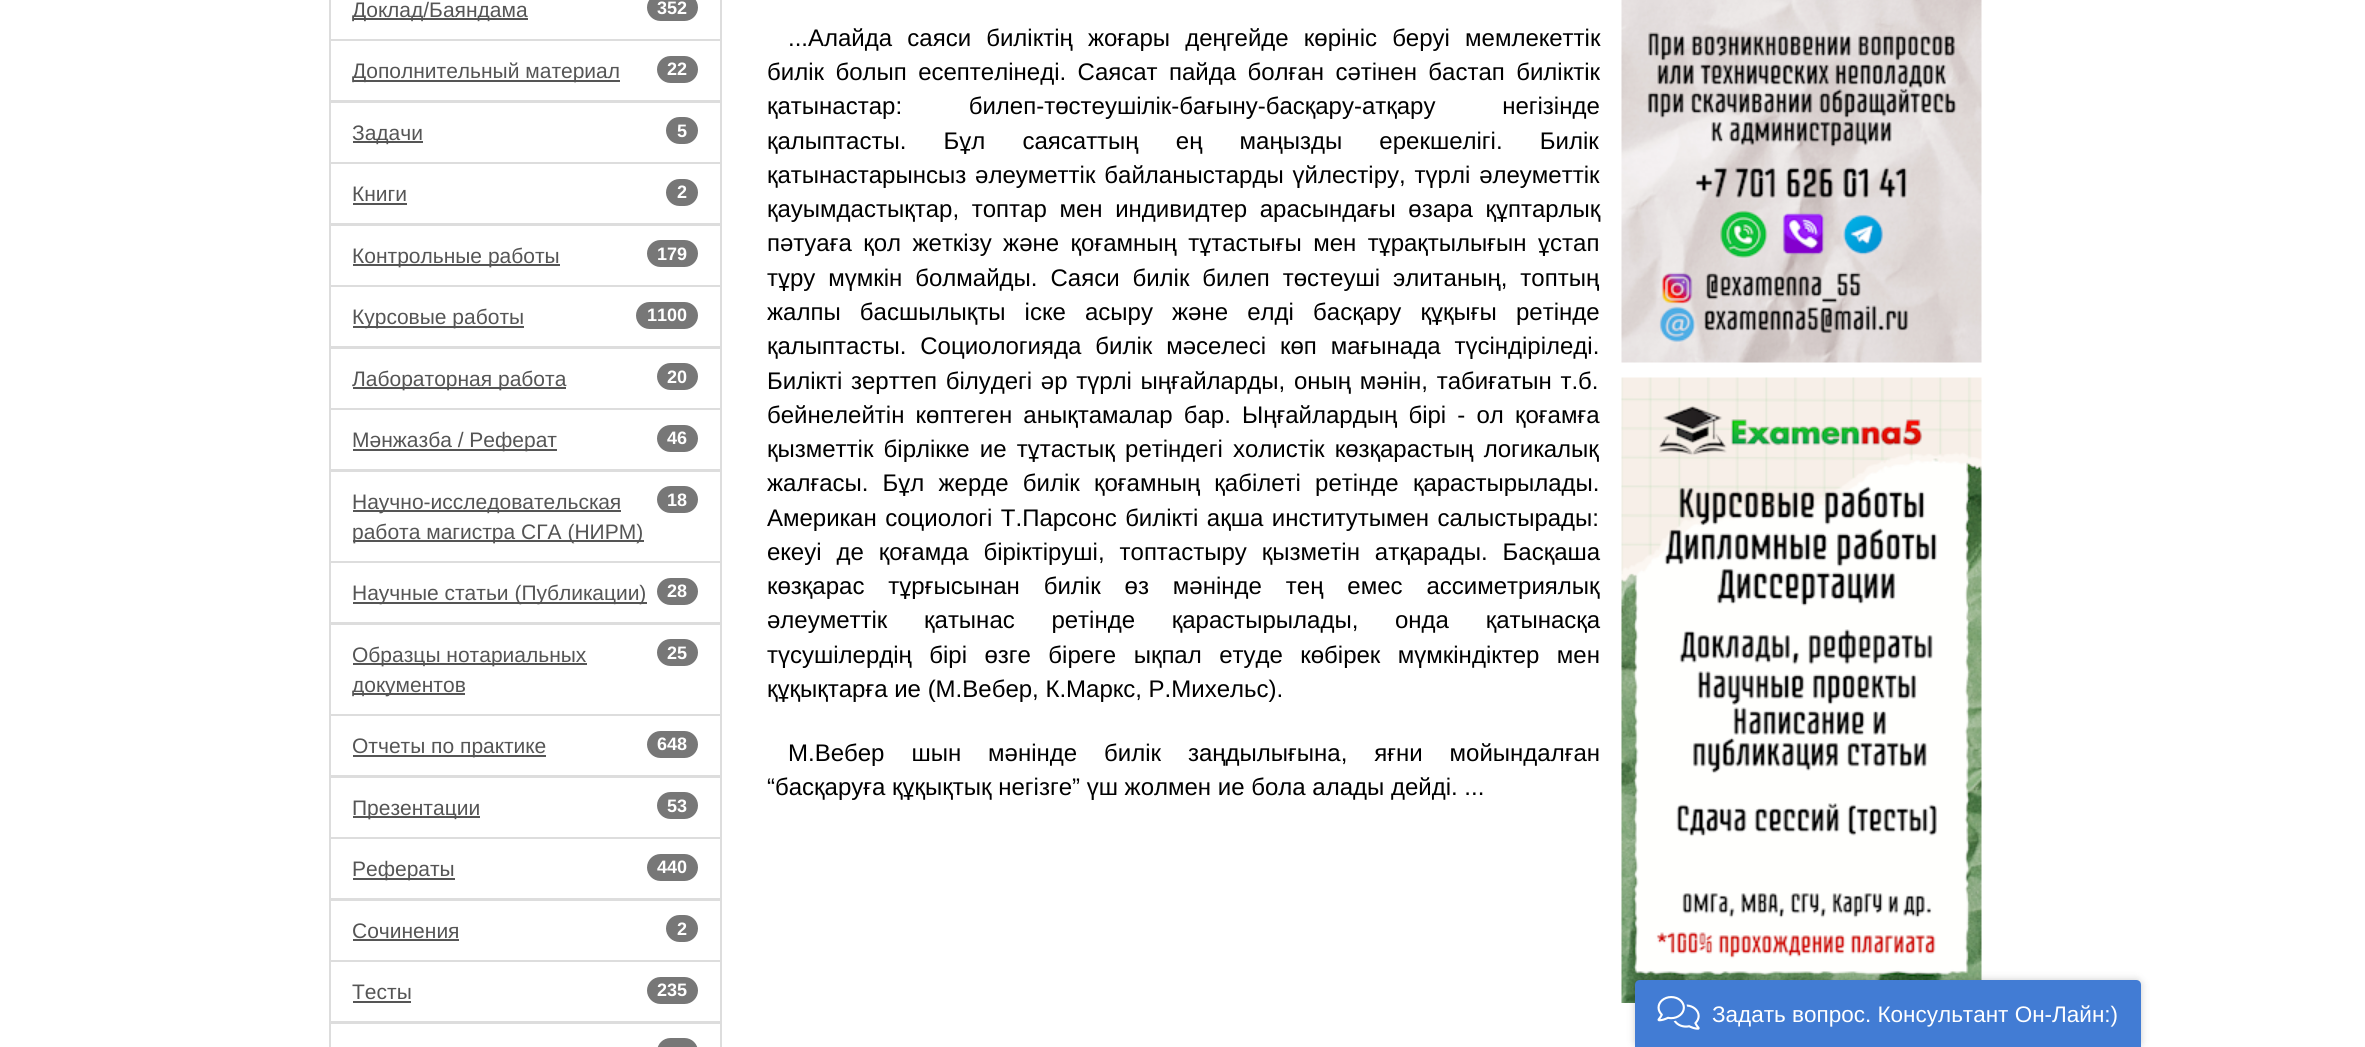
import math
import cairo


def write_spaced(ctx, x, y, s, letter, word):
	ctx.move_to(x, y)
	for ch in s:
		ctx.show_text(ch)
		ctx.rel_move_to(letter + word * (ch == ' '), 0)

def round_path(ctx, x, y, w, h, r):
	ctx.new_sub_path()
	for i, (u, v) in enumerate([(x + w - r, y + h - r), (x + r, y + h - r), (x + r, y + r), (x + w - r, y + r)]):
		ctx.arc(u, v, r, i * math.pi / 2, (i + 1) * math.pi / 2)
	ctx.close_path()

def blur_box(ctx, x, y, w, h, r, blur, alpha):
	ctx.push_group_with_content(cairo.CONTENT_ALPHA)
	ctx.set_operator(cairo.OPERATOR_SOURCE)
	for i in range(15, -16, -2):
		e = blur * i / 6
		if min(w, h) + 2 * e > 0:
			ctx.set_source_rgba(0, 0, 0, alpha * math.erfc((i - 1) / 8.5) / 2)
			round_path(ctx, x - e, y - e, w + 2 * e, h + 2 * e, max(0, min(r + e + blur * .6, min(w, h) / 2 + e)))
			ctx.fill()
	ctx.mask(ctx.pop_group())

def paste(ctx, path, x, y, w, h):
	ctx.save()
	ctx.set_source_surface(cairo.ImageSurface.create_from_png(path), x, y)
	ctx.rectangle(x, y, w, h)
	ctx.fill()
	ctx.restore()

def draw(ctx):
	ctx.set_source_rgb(1, 1, 1)
	ctx.paint()
	ctx.rectangle(330, -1, 391, 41)
	ctx.set_source_rgb(0.867, 0.867, 0.867)
	ctx.stroke()
	ctx.set_source_rgb(0.333, 0.333, 0.333)
	ctx.rectangle(353, 18, 175, 2)
	ctx.fill()
	ctx.select_font_face('Liberation Sans')
	ctx.set_font_size(21)
	ctx.move_to(352, 17)
	ctx.show_text('Доклад/Баяндама')
	ctx.set_source_rgb(0.467, 0.467, 0.467)
	round_path(ctx, 647, -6, 51, 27, 13.5)
	ctx.fill()
	ctx.select_font_face('Liberation Sans', cairo.FONT_SLANT_NORMAL, cairo.FONT_WEIGHT_BOLD)
	ctx.set_font_size(18)
	ctx.set_source_rgb(1, 1, 1)
	ctx.move_to(657, 14)
	ctx.show_text('352')
	ctx.rectangle(330, 40, 391, 61)
	ctx.set_source_rgb(0.867, 0.867, 0.867)
	ctx.stroke()
	ctx.set_source_rgb(0.333, 0.333, 0.333)
	ctx.rectangle(353, 80, 267, 2)
	ctx.fill()
	ctx.select_font_face('Liberation Sans')
	ctx.set_font_size(21)
	ctx.move_to(352, 78)
	ctx.show_text('Дополнительный материал')
	ctx.set_source_rgb(0.467, 0.467, 0.467)
	round_path(ctx, 657, 56, 41, 27, 13.5)
	ctx.fill()
	ctx.select_font_face('Liberation Sans', cairo.FONT_SLANT_NORMAL, cairo.FONT_WEIGHT_BOLD)
	ctx.set_font_size(18)
	ctx.set_source_rgb(1, 1, 1)
	ctx.move_to(667, 75)
	ctx.show_text('22')
	ctx.rectangle(330, 102, 391, 61)
	ctx.set_source_rgb(0.867, 0.867, 0.867)
	ctx.stroke()
	ctx.set_source_rgb(0.333, 0.333, 0.333)
	ctx.rectangle(353, 141, 70, 2)
	ctx.fill()
	ctx.select_font_face('Liberation Sans')
	ctx.set_font_size(21)
	ctx.move_to(352, 140)
	ctx.show_text('Задачи')
	ctx.set_source_rgb(0.467, 0.467, 0.467)
	round_path(ctx, 666, 117, 32, 27, 13.5)
	ctx.fill()
	ctx.select_font_face('Liberation Sans', cairo.FONT_SLANT_NORMAL, cairo.FONT_WEIGHT_BOLD)
	ctx.set_font_size(18)
	ctx.set_source_rgb(1, 1, 1)
	ctx.move_to(677, 137)
	ctx.show_text('5')
	ctx.rectangle(330, 163, 391, 61)
	ctx.set_source_rgb(0.867, 0.867, 0.867)
	ctx.stroke()
	ctx.select_font_face('Liberation Sans')
	ctx.set_font_size(21)
	ctx.set_source_rgb(0.333, 0.333, 0.333)
	ctx.move_to(352, 201)
	ctx.show_text('Книги')
	ctx.rectangle(353, 203, 54, 2)
	ctx.fill()
	ctx.set_source_rgb(0.467, 0.467, 0.467)
	round_path(ctx, 666, 179, 32, 27, 13.5)
	ctx.fill()
	ctx.select_font_face('Liberation Sans', cairo.FONT_SLANT_NORMAL, cairo.FONT_WEIGHT_BOLD)
	ctx.set_font_size(18)
	ctx.set_source_rgb(1, 1, 1)
	ctx.move_to(677, 198)
	ctx.show_text('2')
	ctx.rectangle(330, 225, 391, 61)
	ctx.set_source_rgb(0.867, 0.867, 0.867)
	ctx.stroke()
	ctx.set_source_rgb(0.333, 0.333, 0.333)
	ctx.rectangle(353, 264, 207, 2)
	ctx.fill()
	ctx.select_font_face('Liberation Sans')
	ctx.set_font_size(21)
	ctx.move_to(352, 263)
	ctx.show_text('Контрольные работы')
	ctx.set_source_rgb(0.467, 0.467, 0.467)
	round_path(ctx, 647, 240, 51, 27, 13.5)
	ctx.fill()
	ctx.select_font_face('Liberation Sans', cairo.FONT_SLANT_NORMAL, cairo.FONT_WEIGHT_BOLD)
	ctx.set_font_size(18)
	ctx.set_source_rgb(1, 1, 1)
	ctx.move_to(657, 260)
	ctx.show_text('179')
	ctx.rectangle(330, 286, 391, 61)
	ctx.set_source_rgb(0.867, 0.867, 0.867)
	ctx.stroke()
	ctx.set_source_rgb(0.333, 0.333, 0.333)
	ctx.rectangle(353, 326, 171, 2)
	ctx.fill()
	ctx.select_font_face('Liberation Sans')
	ctx.set_font_size(21)
	ctx.move_to(352, 324)
	ctx.show_text('Курсовые работы')
	ctx.set_source_rgb(0.467, 0.467, 0.467)
	round_path(ctx, 636, 302, 62, 27, 13.5)
	ctx.fill()
	ctx.select_font_face('Liberation Sans', cairo.FONT_SLANT_NORMAL, cairo.FONT_WEIGHT_BOLD)
	ctx.set_font_size(18)
	ctx.set_source_rgb(1, 1, 1)
	ctx.move_to(647, 321)
	ctx.show_text('1100')
	ctx.rectangle(330, 348, 391, 61)
	ctx.set_source_rgb(0.867, 0.867, 0.867)
	ctx.stroke()
	ctx.set_source_rgb(0.333, 0.333, 0.333)
	ctx.rectangle(353, 387, 213, 2)
	ctx.fill()
	ctx.select_font_face('Liberation Sans')
	ctx.set_font_size(21)
	ctx.move_to(352, 386)
	ctx.show_text('Лабораторная работа')
	ctx.set_source_rgb(0.467, 0.467, 0.467)
	round_path(ctx, 657, 363, 41, 27, 13.5)
	ctx.fill()
	ctx.select_font_face('Liberation Sans', cairo.FONT_SLANT_NORMAL, cairo.FONT_WEIGHT_BOLD)
	ctx.set_font_size(18)
	ctx.set_source_rgb(1, 1, 1)
	ctx.move_to(667, 383)
	ctx.show_text('20')
	ctx.rectangle(330, 409, 391, 61)
	ctx.set_source_rgb(0.867, 0.867, 0.867)
	ctx.stroke()
	ctx.set_source_rgb(0.333, 0.333, 0.333)
	ctx.rectangle(353, 449, 204, 2)
	ctx.fill()
	ctx.select_font_face('Liberation Sans')
	ctx.set_font_size(21)
	ctx.move_to(352, 447)
	ctx.show_text('Мәнжазба / Реферат')
	ctx.set_source_rgb(0.467, 0.467, 0.467)
	round_path(ctx, 657, 425, 41, 27, 13.5)
	ctx.fill()
	ctx.select_font_face('Liberation Sans', cairo.FONT_SLANT_NORMAL, cairo.FONT_WEIGHT_BOLD)
	ctx.set_font_size(18)
	ctx.set_source_rgb(1, 1, 1)
	ctx.move_to(667, 444)
	ctx.show_text('46')
	ctx.rectangle(330, 471, 391, 91)
	ctx.set_source_rgb(0.867, 0.867, 0.867)
	ctx.stroke()
	ctx.set_source_rgb(0.333, 0.333, 0.333)
	ctx.rectangle(353, 510, 268, 2)
	ctx.fill()
	ctx.select_font_face('Liberation Sans')
	ctx.set_font_size(21)
	ctx.move_to(352, 509)
	ctx.show_text('Научно-исследовательская')
	ctx.set_source_rgb(0.467, 0.467, 0.467)
	round_path(ctx, 657, 486, 41, 27, 13.5)
	ctx.fill()
	ctx.select_font_face('Liberation Sans', cairo.FONT_SLANT_NORMAL, cairo.FONT_WEIGHT_BOLD)
	ctx.set_font_size(18)
	ctx.set_source_rgb(1, 1, 1)
	ctx.move_to(667, 506)
	ctx.show_text('18')
	ctx.set_source_rgb(0.333, 0.333, 0.333)
	ctx.rectangle(353, 540, 291, 2)
	ctx.fill()
	ctx.select_font_face('Liberation Sans')
	ctx.set_font_size(21)
	ctx.move_to(352, 539)
	ctx.show_text('работа магистра СГА (НИРМ)')
	ctx.rectangle(330, 562, 391, 61)
	ctx.set_source_rgb(0.867, 0.867, 0.867)
	ctx.stroke()
	ctx.set_source_rgb(0.333, 0.333, 0.333)
	ctx.rectangle(353, 602, 294, 2)
	ctx.fill()
	ctx.move_to(352, 600)
	ctx.show_text('Научные статьи (Публикации)')
	ctx.set_source_rgb(0.467, 0.467, 0.467)
	round_path(ctx, 657, 578, 41, 27, 13.5)
	ctx.fill()
	ctx.select_font_face('Liberation Sans', cairo.FONT_SLANT_NORMAL, cairo.FONT_WEIGHT_BOLD)
	ctx.set_font_size(18)
	ctx.set_source_rgb(1, 1, 1)
	ctx.move_to(667, 597)
	ctx.show_text('28')
	ctx.rectangle(330, 624, 391, 91)
	ctx.set_source_rgb(0.867, 0.867, 0.867)
	ctx.stroke()
	ctx.set_source_rgb(0.333, 0.333, 0.333)
	ctx.rectangle(353, 663, 234, 2)
	ctx.fill()
	ctx.select_font_face('Liberation Sans')
	ctx.set_font_size(21)
	ctx.move_to(352, 662)
	ctx.show_text('Образцы нотариальных')
	ctx.set_source_rgb(0.467, 0.467, 0.467)
	round_path(ctx, 657, 639, 41, 27, 13.5)
	ctx.fill()
	ctx.select_font_face('Liberation Sans', cairo.FONT_SLANT_NORMAL, cairo.FONT_WEIGHT_BOLD)
	ctx.set_font_size(18)
	ctx.set_source_rgb(1, 1, 1)
	ctx.move_to(667, 659)
	ctx.show_text('25')
	ctx.set_source_rgb(0.333, 0.333, 0.333)
	ctx.rectangle(353, 693, 112, 2)
	ctx.fill()
	ctx.select_font_face('Liberation Sans')
	ctx.set_font_size(21)
	ctx.move_to(352, 692)
	ctx.show_text('документов')
	ctx.rectangle(330, 715, 391, 61)
	ctx.set_source_rgb(0.867, 0.867, 0.867)
	ctx.stroke()
	ctx.set_source_rgb(0.333, 0.333, 0.333)
	ctx.rectangle(353, 755, 193, 2)
	ctx.fill()
	ctx.move_to(352, 753)
	ctx.show_text('Отчеты по практике')
	ctx.set_source_rgb(0.467, 0.467, 0.467)
	round_path(ctx, 647, 731, 51, 27, 13.5)
	ctx.fill()
	ctx.select_font_face('Liberation Sans', cairo.FONT_SLANT_NORMAL, cairo.FONT_WEIGHT_BOLD)
	ctx.set_font_size(18)
	ctx.set_source_rgb(1, 1, 1)
	ctx.move_to(657, 750)
	ctx.show_text('648')
	ctx.rectangle(330, 777, 391, 61)
	ctx.set_source_rgb(0.867, 0.867, 0.867)
	ctx.stroke()
	ctx.set_source_rgb(0.333, 0.333, 0.333)
	ctx.rectangle(353, 816, 127, 2)
	ctx.fill()
	ctx.select_font_face('Liberation Sans')
	ctx.set_font_size(21)
	ctx.move_to(352, 815)
	ctx.show_text('Презентации')
	ctx.set_source_rgb(0.467, 0.467, 0.467)
	round_path(ctx, 657, 792, 41, 27, 13.5)
	ctx.fill()
	ctx.select_font_face('Liberation Sans', cairo.FONT_SLANT_NORMAL, cairo.FONT_WEIGHT_BOLD)
	ctx.set_font_size(18)
	ctx.set_source_rgb(1, 1, 1)
	ctx.move_to(667, 812)
	ctx.show_text('53')
	ctx.rectangle(330, 838, 391, 61)
	ctx.set_source_rgb(0.867, 0.867, 0.867)
	ctx.stroke()
	ctx.set_source_rgb(0.333, 0.333, 0.333)
	ctx.rectangle(353, 878, 102, 2)
	ctx.fill()
	ctx.select_font_face('Liberation Sans')
	ctx.set_font_size(21)
	ctx.move_to(352, 876)
	ctx.show_text('Рефераты')
	ctx.set_source_rgb(0.467, 0.467, 0.467)
	round_path(ctx, 647, 854, 51, 27, 13.5)
	ctx.fill()
	ctx.select_font_face('Liberation Sans', cairo.FONT_SLANT_NORMAL, cairo.FONT_WEIGHT_BOLD)
	ctx.set_font_size(18)
	ctx.set_source_rgb(1, 1, 1)
	ctx.move_to(657, 873)
	ctx.show_text('440')
	ctx.rectangle(330, 900, 391, 61)
	ctx.set_source_rgb(0.867, 0.867, 0.867)
	ctx.stroke()
	ctx.select_font_face('Liberation Sans')
	ctx.set_font_size(21)
	ctx.set_source_rgb(0.333, 0.333, 0.333)
	ctx.move_to(352, 938)
	ctx.show_text('Сочинения')
	ctx.rectangle(353, 939, 106, 2)
	ctx.fill()
	ctx.set_source_rgb(0.467, 0.467, 0.467)
	round_path(ctx, 666, 915, 32, 27, 13.5)
	ctx.fill()
	ctx.select_font_face('Liberation Sans', cairo.FONT_SLANT_NORMAL, cairo.FONT_WEIGHT_BOLD)
	ctx.set_font_size(18)
	ctx.set_source_rgb(1, 1, 1)
	ctx.move_to(677, 935)
	ctx.show_text('2')
	ctx.rectangle(330, 961, 391, 61)
	ctx.set_source_rgb(0.867, 0.867, 0.867)
	ctx.stroke()
	ctx.select_font_face('Liberation Sans')
	ctx.set_font_size(21)
	ctx.set_source_rgb(0.333, 0.333, 0.333)
	ctx.move_to(352, 999)
	ctx.show_text('Тесты')
	ctx.rectangle(353, 1001, 58, 2)
	ctx.fill()
	ctx.set_source_rgb(0.467, 0.467, 0.467)
	round_path(ctx, 647, 977, 51, 27, 13.5)
	ctx.fill()
	ctx.select_font_face('Liberation Sans', cairo.FONT_SLANT_NORMAL, cairo.FONT_WEIGHT_BOLD)
	ctx.set_font_size(18)
	ctx.set_source_rgb(1, 1, 1)
	ctx.move_to(657, 996)
	ctx.show_text('235')
	ctx.rectangle(330, 1023, 391, 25)
	ctx.set_source_rgb(0.867, 0.867, 0.867)
	ctx.stroke()
	ctx.set_source_rgb(0.467, 0.467, 0.467)
	round_path(ctx, 657, 1038, 41, 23, 13.5)
	ctx.fill()
	ctx.select_font_face('Liberation Sans')
	ctx.set_font_size(24)
	ctx.set_source_rgb(0, 0, 0)
	write_spaced(ctx, 788, 46, '...Алайда саяси биліктің жоғары деңгейде көрініс беруі мемлекеттік', 0, 8.5)
	write_spaced(ctx, 767, 80, 'билік болып есептелінеді. Саясат пайда болған сәтінен бастап биліктік', 0, 4.75)
	write_spaced(ctx, 767, 114, 'қатынастар: билеп-төстеушілік-бағыну-басқару-атқару негізінде', 0, 60)
	write_spaced(ctx, 767, 149, 'қалыптасты. Бұл саясаттың ең маңызды ерекшелігі. Билік', 0, 30.5)
	write_spaced(ctx, 767, 183, 'қатынастарынсыз әлеуметтік байланыстарды үйлестіру, түрлі әлеуметтік', 0, 2.25)
	write_spaced(ctx, 767, 217, 'қауымдастықтар, топтар мен индивидтер арасындағы өзара құптарлық', 0, 6)
	write_spaced(ctx, 767, 251, 'пәтуаға қол жеткізу және қоғамның тұтастығы мен тұрақтылығын ұстап', 0, 4.75)
	write_spaced(ctx, 767, 286, 'тұру мүмкін болмайды. Саяси билік билеп төстеуші элитаның, топтың', 0, 6.25)
	write_spaced(ctx, 767, 320, 'жалпы басшылықты іске асыру және елді басқару құқығы ретінде', 0, 12.5)
	write_spaced(ctx, 767, 354, 'қалыптасты. Социологияда билік мәселесі көп мағынада түсіндіріледі.', 0, 7.25)
	write_spaced(ctx, 767, 389, 'Билікті зерттеп білудегі әр түрлі ыңғайларды, оның мәнін, табиғатын т.б.', 0, 2)
	write_spaced(ctx, 767, 423, 'бейнелейтін көптеген анықтамалар бар. Ыңғайлардың бірі - ол қоғамға', 0, 4.5)
	write_spaced(ctx, 767, 457, 'қызметтік бірлікке ие тұтастық ретіндегі холистік көзқарастың логикалық', 0, 3.5)
	write_spaced(ctx, 767, 491, 'жалғасы. Бұл жерде билік қоғамның қабілеті ретінде қарастырылады.', 0, 7.5)
	write_spaced(ctx, 767, 526, 'Американ социологі Т.Парсонс билікті ақша институтымен салыстырады:', 0, 1.75)
	write_spaced(ctx, 767, 560, 'екеуі де қоғамда біріктіруші, топтастыру қызметін атқарады. Басқаша', 0, 8.25)
	write_spaced(ctx, 767, 594, 'көзқарас тұрғысынан билік өз мәнінде тең емес ассиметриялық', 0, 17.25)
	write_spaced(ctx, 767, 628, 'әлеуметтік қатынас ретінде қарастырылады, онда қатынасқа', 0, 30)
	write_spaced(ctx, 767, 663, 'түсушілердің бірі өзге біреге ықпал етуде көбірек мүмкіндіктер мен', 0, 10.75)
	ctx.move_to(767, 697)
	ctx.show_text('құқықтарға ие (М.Вебер, К.Маркс, Р.Михельс).')
	write_spaced(ctx, 788, 761, 'М.Вебер шын мәнінде билік заңдылығына, яғни мойындалған', 0, 20.25)
	ctx.move_to(767, 795)
	ctx.show_text('“басқаруға құқықтық негізге” үш жолмен ие бола алады дейді. ...')
	paste(ctx, 'media/1.png', 1621, 0, 361, 363)
	paste(ctx, 'media/2.png', 1621, 377, 361, 626)
	ctx.set_source_rgb(0, 0, 0)
	blur_box(ctx, 1635, 980, 506, 67, 5, 4, 0.2)
	ctx.set_source_rgb(0.259, 0.486, 0.831)
	ctx.new_path()
	ctx.move_to(1640, 980)
	ctx.line_to(2136, 980)
	ctx.curve_to(2139, 980, 2141, 982, 2141, 985)
	ctx.line_to(2141, 1047)
	ctx.line_to(1635, 1047)
	ctx.line_to(1635, 985)
	ctx.curve_to(1635, 982, 1637, 980, 1640, 980)
	ctx.close_path()
	ctx.fill()
	paste(ctx, 'media/3.png', 1657, 996, 43, 34)
	ctx.set_font_size(22.5)
	ctx.set_source_rgb(1, 1, 1)
	ctx.move_to(1712, 1022)
	ctx.show_text('Задать вопрос. Консультант Он-Лайн:)')


surface = cairo.ImageSurface(cairo.FORMAT_RGB24, 2365, 1047)
ctx = cairo.Context(surface)
options = cairo.FontOptions()
options.set_hint_metrics(cairo.HINT_METRICS_OFF)
options.set_hint_style(cairo.HINT_STYLE_NONE)
ctx.set_font_options(options)
ctx.set_miter_limit(4)
draw(ctx)
surface.write_to_png('image.png')
